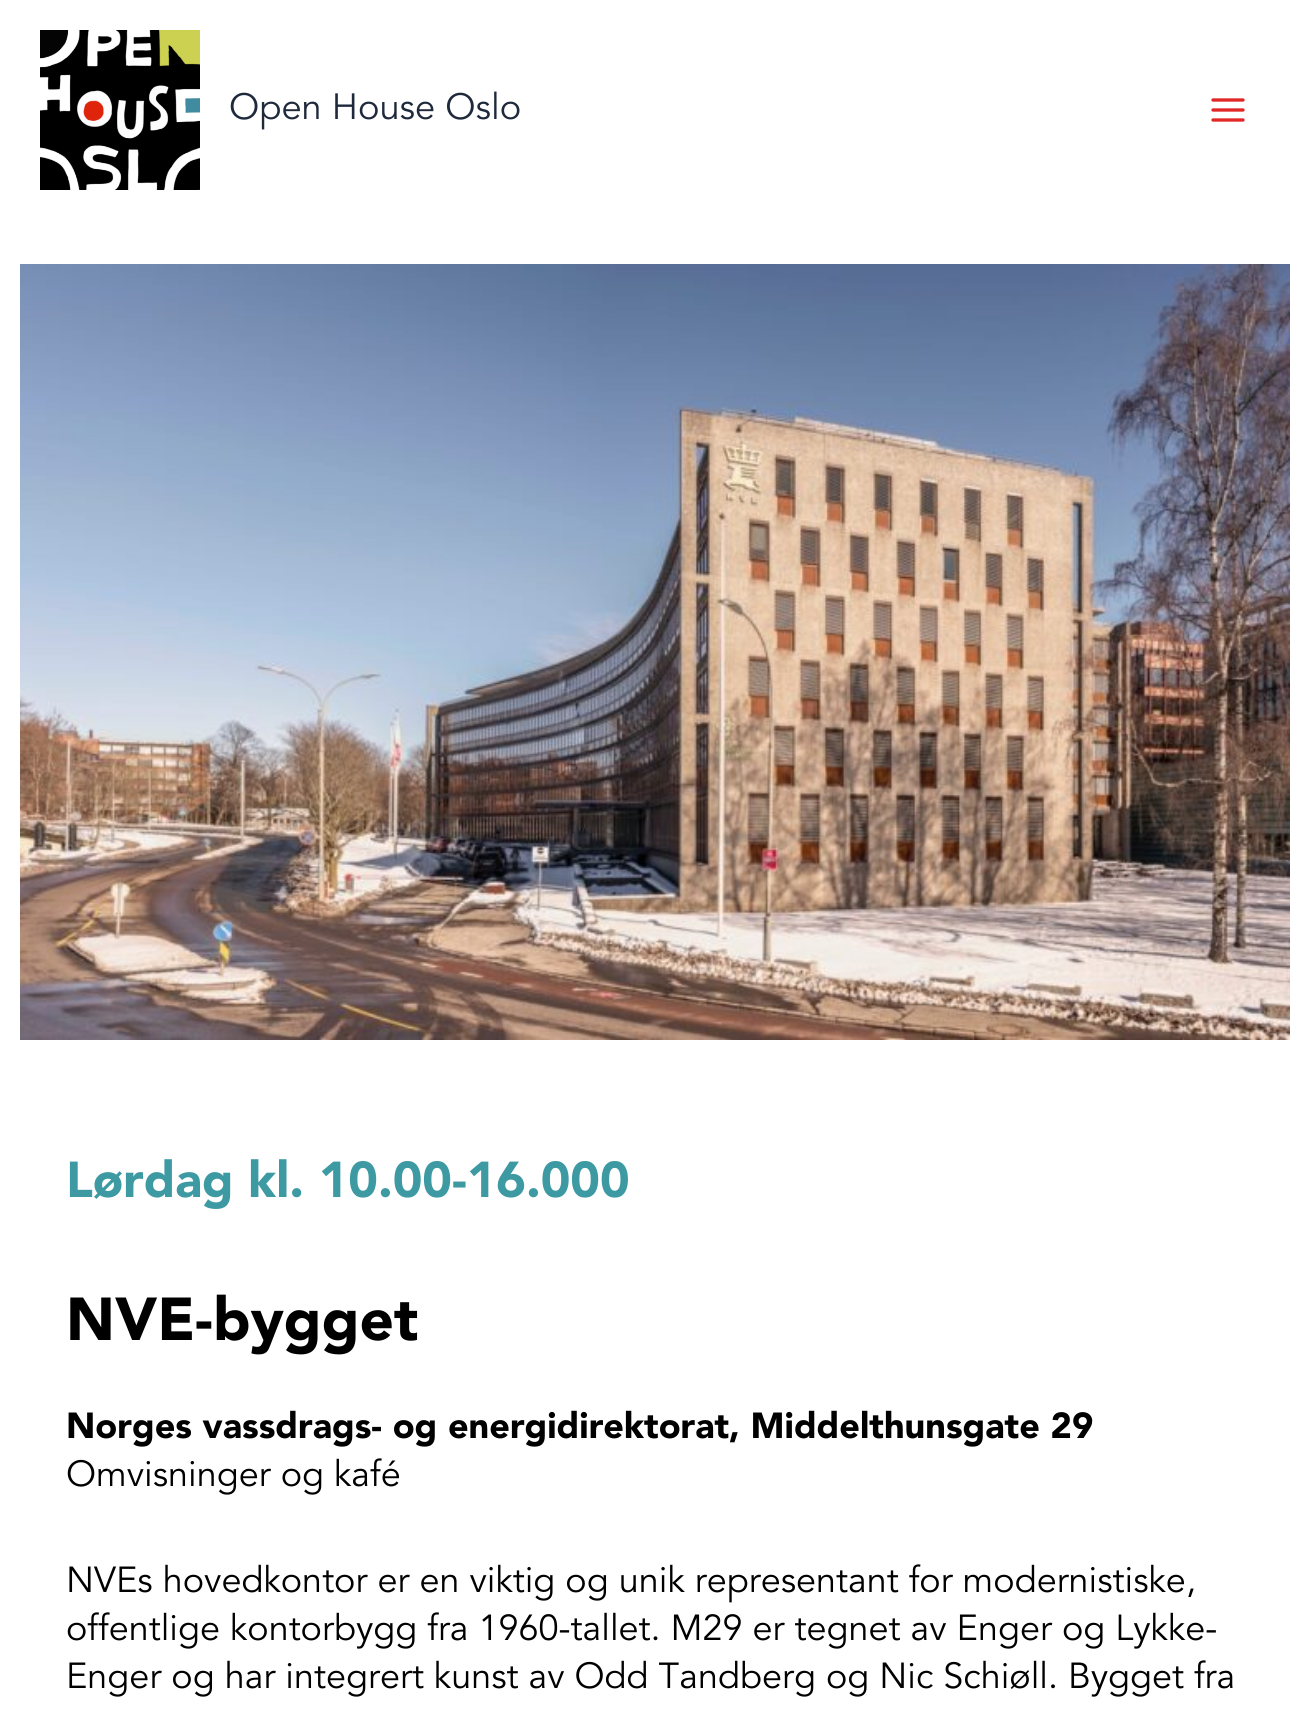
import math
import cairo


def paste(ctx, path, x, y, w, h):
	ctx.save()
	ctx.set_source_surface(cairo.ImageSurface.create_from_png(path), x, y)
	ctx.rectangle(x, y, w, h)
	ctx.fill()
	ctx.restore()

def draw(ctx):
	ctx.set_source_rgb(1, 1, 1)
	ctx.paint()
	paste(ctx, 'media/1.png', 40, 30, 160, 160)
	ctx.select_font_face('Avenir')
	ctx.set_font_size(36.25)
	ctx.set_source_rgb(0.118, 0.161, 0.231)
	ctx.move_to(229, 119)
	ctx.show_text('Open House Oslo')
	paste(ctx, 'media/2.png', 1211, 98, 34, 24)
	paste(ctx, 'media/3.png', 20, 264, 1270, 776)
	ctx.select_font_face('Avenir Black')
	ctx.set_font_size(50)
	ctx.set_source_rgb(0.239, 0.604, 0.635)
	ctx.move_to(66, 1197)
	ctx.show_text('Lørdag kl. 10.00-16.000')
	ctx.set_font_size(60)
	ctx.set_source_rgb(0, 0, 0)
	ctx.move_to(66, 1340)
	ctx.show_text('NVE-bygget')
	ctx.set_font_size(36)
	ctx.move_to(66, 1438)
	ctx.show_text('Norges vassdrags- og energidirektorat, Middelthunsgate 29')
	ctx.select_font_face('Avenir')
	for x, y, s in [
		(66, 1486, 'Omvisninger og kafé'),
		(66, 1592, 'NVEs hovedkontor er en viktig og unik representant for modernistiske,'),
		(66, 1640, 'offentlige kontorbygg fra 1960-tallet. M29 er tegnet av Enger og Lykke-'),
		(66, 1688, 'Enger og har integrert kunst av Odd Tandberg og Nic Schiøll. Bygget fra'),
	]:
		ctx.move_to(x, y)
		ctx.show_text(s)


surface = cairo.ImageSurface(cairo.FORMAT_RGB24, 1310, 1709)
ctx = cairo.Context(surface)
options = cairo.FontOptions()
options.set_hint_metrics(cairo.HINT_METRICS_OFF)
options.set_hint_style(cairo.HINT_STYLE_NONE)
ctx.set_font_options(options)
ctx.set_miter_limit(4)
draw(ctx)
surface.write_to_png('image.png')
